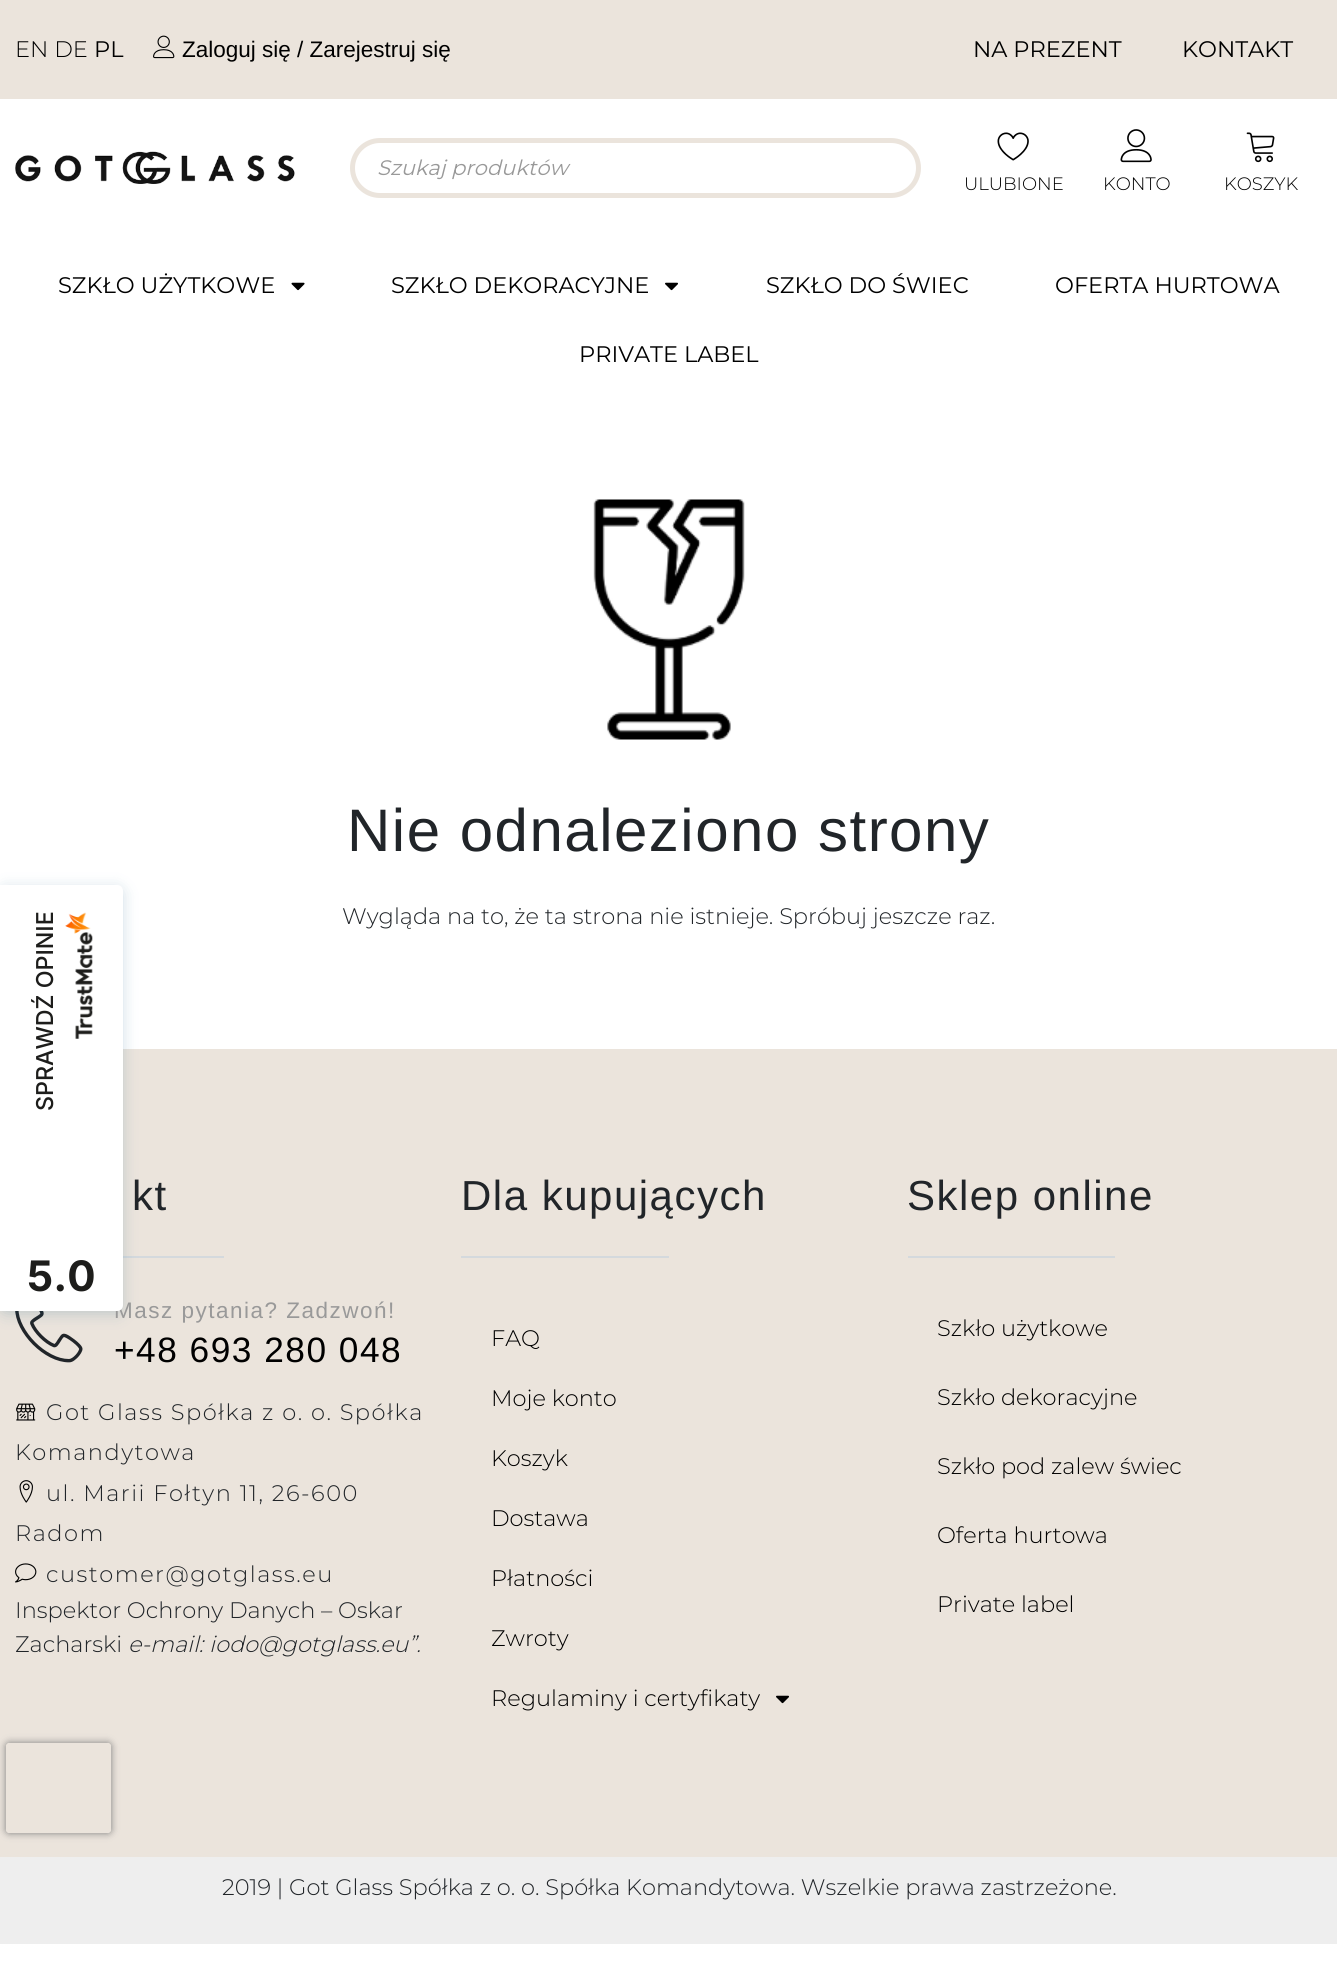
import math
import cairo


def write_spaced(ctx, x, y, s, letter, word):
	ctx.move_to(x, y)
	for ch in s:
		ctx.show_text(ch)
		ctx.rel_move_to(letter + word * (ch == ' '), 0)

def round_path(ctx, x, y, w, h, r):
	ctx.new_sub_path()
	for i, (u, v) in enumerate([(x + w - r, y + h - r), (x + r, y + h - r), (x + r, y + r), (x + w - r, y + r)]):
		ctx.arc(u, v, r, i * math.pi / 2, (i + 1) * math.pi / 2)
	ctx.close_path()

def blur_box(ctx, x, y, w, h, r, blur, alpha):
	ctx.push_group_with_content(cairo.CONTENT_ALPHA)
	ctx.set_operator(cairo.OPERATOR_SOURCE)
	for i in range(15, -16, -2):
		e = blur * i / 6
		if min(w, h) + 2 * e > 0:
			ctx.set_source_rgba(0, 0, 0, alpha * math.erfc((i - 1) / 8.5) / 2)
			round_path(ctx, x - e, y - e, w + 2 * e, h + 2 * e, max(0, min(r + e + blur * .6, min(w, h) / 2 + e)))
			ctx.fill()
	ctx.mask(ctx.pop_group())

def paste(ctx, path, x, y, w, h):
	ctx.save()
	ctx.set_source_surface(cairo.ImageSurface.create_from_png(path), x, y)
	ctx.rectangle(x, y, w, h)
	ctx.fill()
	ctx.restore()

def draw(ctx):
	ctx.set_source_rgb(1, 1, 1)
	ctx.paint()
	ctx.set_source_rgb(0.918, 0.894, 0.863)
	ctx.rectangle(0, 0, 1337, 99)
	ctx.fill()
	ctx.select_font_face('Montserrat Light')
	ctx.set_font_size(22.5)
	ctx.set_source_rgb(0, 0, 0)
	ctx.move_to(15, 57)
	ctx.show_text('EN DE')
	ctx.select_font_face('Montserrat')
	ctx.move_to(94, 57)
	ctx.show_text('PL')
	paste(ctx, 'media/1.png', 153, 35, 22, 24)
	ctx.select_font_face('Liberation Sans')
	ctx.move_to(182, 57)
	ctx.show_text('Zaloguj się / Zarejestruj się')
	ctx.select_font_face('Montserrat')
	ctx.move_to(973, 57)
	ctx.show_text('NA PREZENT')
	ctx.move_to(1182, 57)
	ctx.show_text('KONTAKT')
	paste(ctx, 'media/2.png', 15, 151, 280, 33)
	round_path(ctx, 352.5, 140.5, 566, 55, 27.5)
	ctx.set_source_rgb(0.918, 0.894, 0.863)
	ctx.set_line_width(5)
	ctx.stroke()
	ctx.select_font_face('Montserrat', cairo.FONT_SLANT_ITALIC)
	ctx.set_font_size(21)
	ctx.set_source_rgb(0.6, 0.6, 0.6)
	ctx.move_to(377, 175)
	ctx.show_text('Szukaj produktów')
	paste(ctx, 'media/3.png', 997, 132, 32, 29)
	ctx.select_font_face('Montserrat Light')
	ctx.set_font_size(18)
	ctx.set_source_rgb(0, 0, 0)
	ctx.move_to(964, 190)
	ctx.show_text('ULUBIONE')
	paste(ctx, 'media/4.png', 1120, 129, 32, 34)
	ctx.move_to(1103, 190)
	ctx.show_text('KONTO')
	paste(ctx, 'media/5.png', 1246, 132, 29, 31)
	ctx.move_to(1224, 190)
	ctx.show_text('KOSZYK')
	ctx.select_font_face('Montserrat')
	ctx.set_font_size(22.5)
	ctx.move_to(58, 293)
	ctx.show_text('SZKŁO UŻYTKOWE')
	paste(ctx, 'media/6.png', 291, 282, 14, 9)
	ctx.move_to(391, 293)
	ctx.show_text('SZKŁO DEKORACYJNE')
	paste(ctx, 'media/7.png', 665, 282, 13, 9)
	for x, y, s in [
		(766, 293, 'SZKŁO DO ŚWIEC'),
		(1055, 293, 'OFERTA HURTOWA'),
		(579, 362, 'PRIVATE LABEL'),
	]:
		ctx.move_to(x, y)
		ctx.show_text(s)
	paste(ctx, 'media/8.png', 593, 499, 152, 241)
	ctx.select_font_face('Liberation Sans')
	ctx.set_font_size(60)
	ctx.set_source_rgb(0.129, 0.145, 0.161)
	write_spaced(ctx, 347, 851, 'Nie odnaleziono strony', 1.5, 0)
	ctx.select_font_face('Montserrat Light')
	ctx.set_font_size(22.5)
	ctx.move_to(342, 924)
	ctx.show_text('Wygląda na to, że ta strona nie istnieje. Spróbuj jeszcze raz.')
	ctx.set_source_rgb(0.918, 0.894, 0.863)
	ctx.rectangle(0, 1049, 1337, 808)
	ctx.fill()
	ctx.set_source_rgb(0.831, 0.851, 0.867)
	ctx.rectangle(123, 1256, 101, 2)
	ctx.fill()
	paste(ctx, 'media/10.png', 15, 1311, 68, 52)
	ctx.set_source_rgb(0.043, 0.337, 0.502)
	blur_box(ctx, 0, 888, 123, 426, 6, 7.5, 0.2)
	ctx.select_font_face('Liberation Sans')
	ctx.set_source_rgb(0.6, 0.6, 0.6)
	write_spaced(ctx, 114, 1318, 'Masz pytania? Zadzwoń!', 1.5, 0)
	ctx.set_source_rgb(1, 1, 1)
	ctx.new_path()
	ctx.move_to(0, 885)
	ctx.line_to(117, 885)
	ctx.curve_to(120.5, 885, 123, 887.5, 123, 891)
	ctx.line_to(123, 1305)
	ctx.curve_to(123, 1308.5, 120.5, 1311, 117, 1311)
	ctx.line_to(0, 1311)
	ctx.close_path()
	ctx.fill()
	ctx.select_font_face('Inter Medium')
	ctx.set_font_size(23.25)
	ctx.set_source_rgb(0.114, 0.114, 0.106)
	ctx.save()
	ctx.translate(53, 1111)
	ctx.rotate(-90 * math.pi / 180)
	ctx.move_to(0, 0)
	ctx.show_text('SPRAWDŹ OPINIE')
	ctx.restore()
	paste(ctx, 'media/9.png', 65, 912, 28, 127)
	ctx.select_font_face('Inter', cairo.FONT_SLANT_NORMAL, cairo.FONT_WEIGHT_BOLD)
	ctx.set_font_size(42)
	ctx.move_to(27, 1291)
	ctx.show_text('5.0')
	ctx.select_font_face('Liberation Sans')
	ctx.set_source_rgb(0.129, 0.145, 0.161)
	write_spaced(ctx, 132, 1210, 'kt', 1.5, 0)
	ctx.set_font_size(35.25)
	ctx.set_source_rgb(0, 0, 0)
	write_spaced(ctx, 114, 1362, '+48 693 280 048', 1.5, 0)
	paste(ctx, 'media/11.png', 16, 1403, 20, 18)
	ctx.select_font_face('Montserrat Light')
	ctx.set_font_size(22.5)
	ctx.set_source_rgb(0.129, 0.145, 0.161)
	write_spaced(ctx, 46, 1420, 'Got Glass Spółka z o. o. Spółka', 1.5, 0)
	write_spaced(ctx, 15, 1460, 'Komandytowa', 1.5, 0)
	paste(ctx, 'media/12.png', 19, 1480, 14, 23)
	write_spaced(ctx, 46, 1501, 'ul. Marii Fołtyn 11, 26-600', 1.5, 0)
	write_spaced(ctx, 15, 1541, 'Radom', 1.5, 0)
	paste(ctx, 'media/13.png', 15, 1563, 22, 20)
	write_spaced(ctx, 46, 1582, 'customer@gotglass.eu', 1.5, 0)
	ctx.move_to(15, 1618)
	ctx.show_text('Inspektor Ochrony Danych – Oskar')
	ctx.move_to(15, 1652)
	ctx.show_text('Zacharski')
	ctx.select_font_face('Montserrat Light', cairo.FONT_SLANT_ITALIC)
	ctx.move_to(128, 1652)
	ctx.show_text('e-mail: iodo@gotglass.eu”.')
	ctx.select_font_face('Liberation Sans')
	ctx.set_font_size(42)
	write_spaced(ctx, 461, 1210, 'Dla kupujących', 1.5, 0)
	ctx.set_source_rgb(0.831, 0.851, 0.867)
	ctx.rectangle(461, 1256, 208, 2)
	ctx.fill()
	ctx.select_font_face('Montserrat Light')
	ctx.set_font_size(22.5)
	ctx.set_source_rgb(0, 0, 0)
	for x, y, s in [
		(491, 1346, 'FAQ'),
		(491, 1406, 'Moje konto'),
		(491, 1466, 'Koszyk'),
		(491, 1526, 'Dostawa'),
		(491, 1586, 'Płatności'),
		(491, 1646, 'Zwroty'),
		(491, 1706, 'Regulaminy i certyfikaty'),
	]:
		ctx.move_to(x, y)
		ctx.show_text(s)
	paste(ctx, 'media/14.png', 776, 1695, 13, 9)
	ctx.select_font_face('Liberation Sans')
	ctx.set_font_size(42)
	ctx.set_source_rgb(0.129, 0.145, 0.161)
	write_spaced(ctx, 907, 1210, 'Sklep online', 1.5, 0)
	ctx.set_source_rgb(0.831, 0.851, 0.867)
	ctx.rectangle(908, 1256, 207, 2)
	ctx.fill()
	ctx.select_font_face('Montserrat Light')
	ctx.set_font_size(22.5)
	ctx.set_source_rgb(0, 0, 0)
	for x, y, s in [
		(937, 1336, 'Szkło użytkowe'),
		(937, 1405, 'Szkło dekoracyjne'),
		(937, 1474, 'Szkło pod zalew świec'),
		(937, 1543, 'Oferta hurtowa'),
		(937, 1612, 'Private label'),
	]:
		ctx.move_to(x, y)
		ctx.show_text(s)
	ctx.set_source_rgb(0.933, 0.933, 0.933)
	ctx.rectangle(0, 1857, 1337, 87)
	ctx.fill()
	ctx.set_source_rgb(0.129, 0.145, 0.161)
	ctx.move_to(222, 1895)
	ctx.show_text('2019 | Got Glass Spółka z o. o. Spółka Komandytowa. Wszelkie prawa zastrzeżone.')
	ctx.save()
	ctx.set_fill_rule(cairo.FILL_RULE_EVEN_ODD)
	ctx.new_path()
	ctx.move_to(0, 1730)
	ctx.line_to(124, 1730)
	ctx.line_to(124, 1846)
	ctx.line_to(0, 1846)
	ctx.close_path()
	ctx.move_to(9, 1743)
	ctx.line_to(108, 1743)
	ctx.curve_to(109.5, 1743, 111, 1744.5, 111, 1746)
	ctx.line_to(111, 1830)
	ctx.curve_to(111, 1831.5, 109.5, 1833, 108, 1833)
	ctx.line_to(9, 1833)
	ctx.curve_to(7.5, 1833, 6, 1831.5, 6, 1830)
	ctx.line_to(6, 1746)
	ctx.curve_to(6, 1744.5, 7.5, 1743, 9, 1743)
	ctx.close_path()
	ctx.clip()
	ctx.set_source_rgb(0.502, 0.502, 0.502)
	blur_box(ctx, 6, 1743, 105, 90, 3, 4, 1)
	ctx.restore()


surface = cairo.ImageSurface(cairo.FORMAT_RGB24, 1337, 1967)
ctx = cairo.Context(surface)
options = cairo.FontOptions()
options.set_hint_metrics(cairo.HINT_METRICS_OFF)
options.set_hint_style(cairo.HINT_STYLE_NONE)
ctx.set_font_options(options)
ctx.set_miter_limit(4)
draw(ctx)
surface.write_to_png('image.png')
